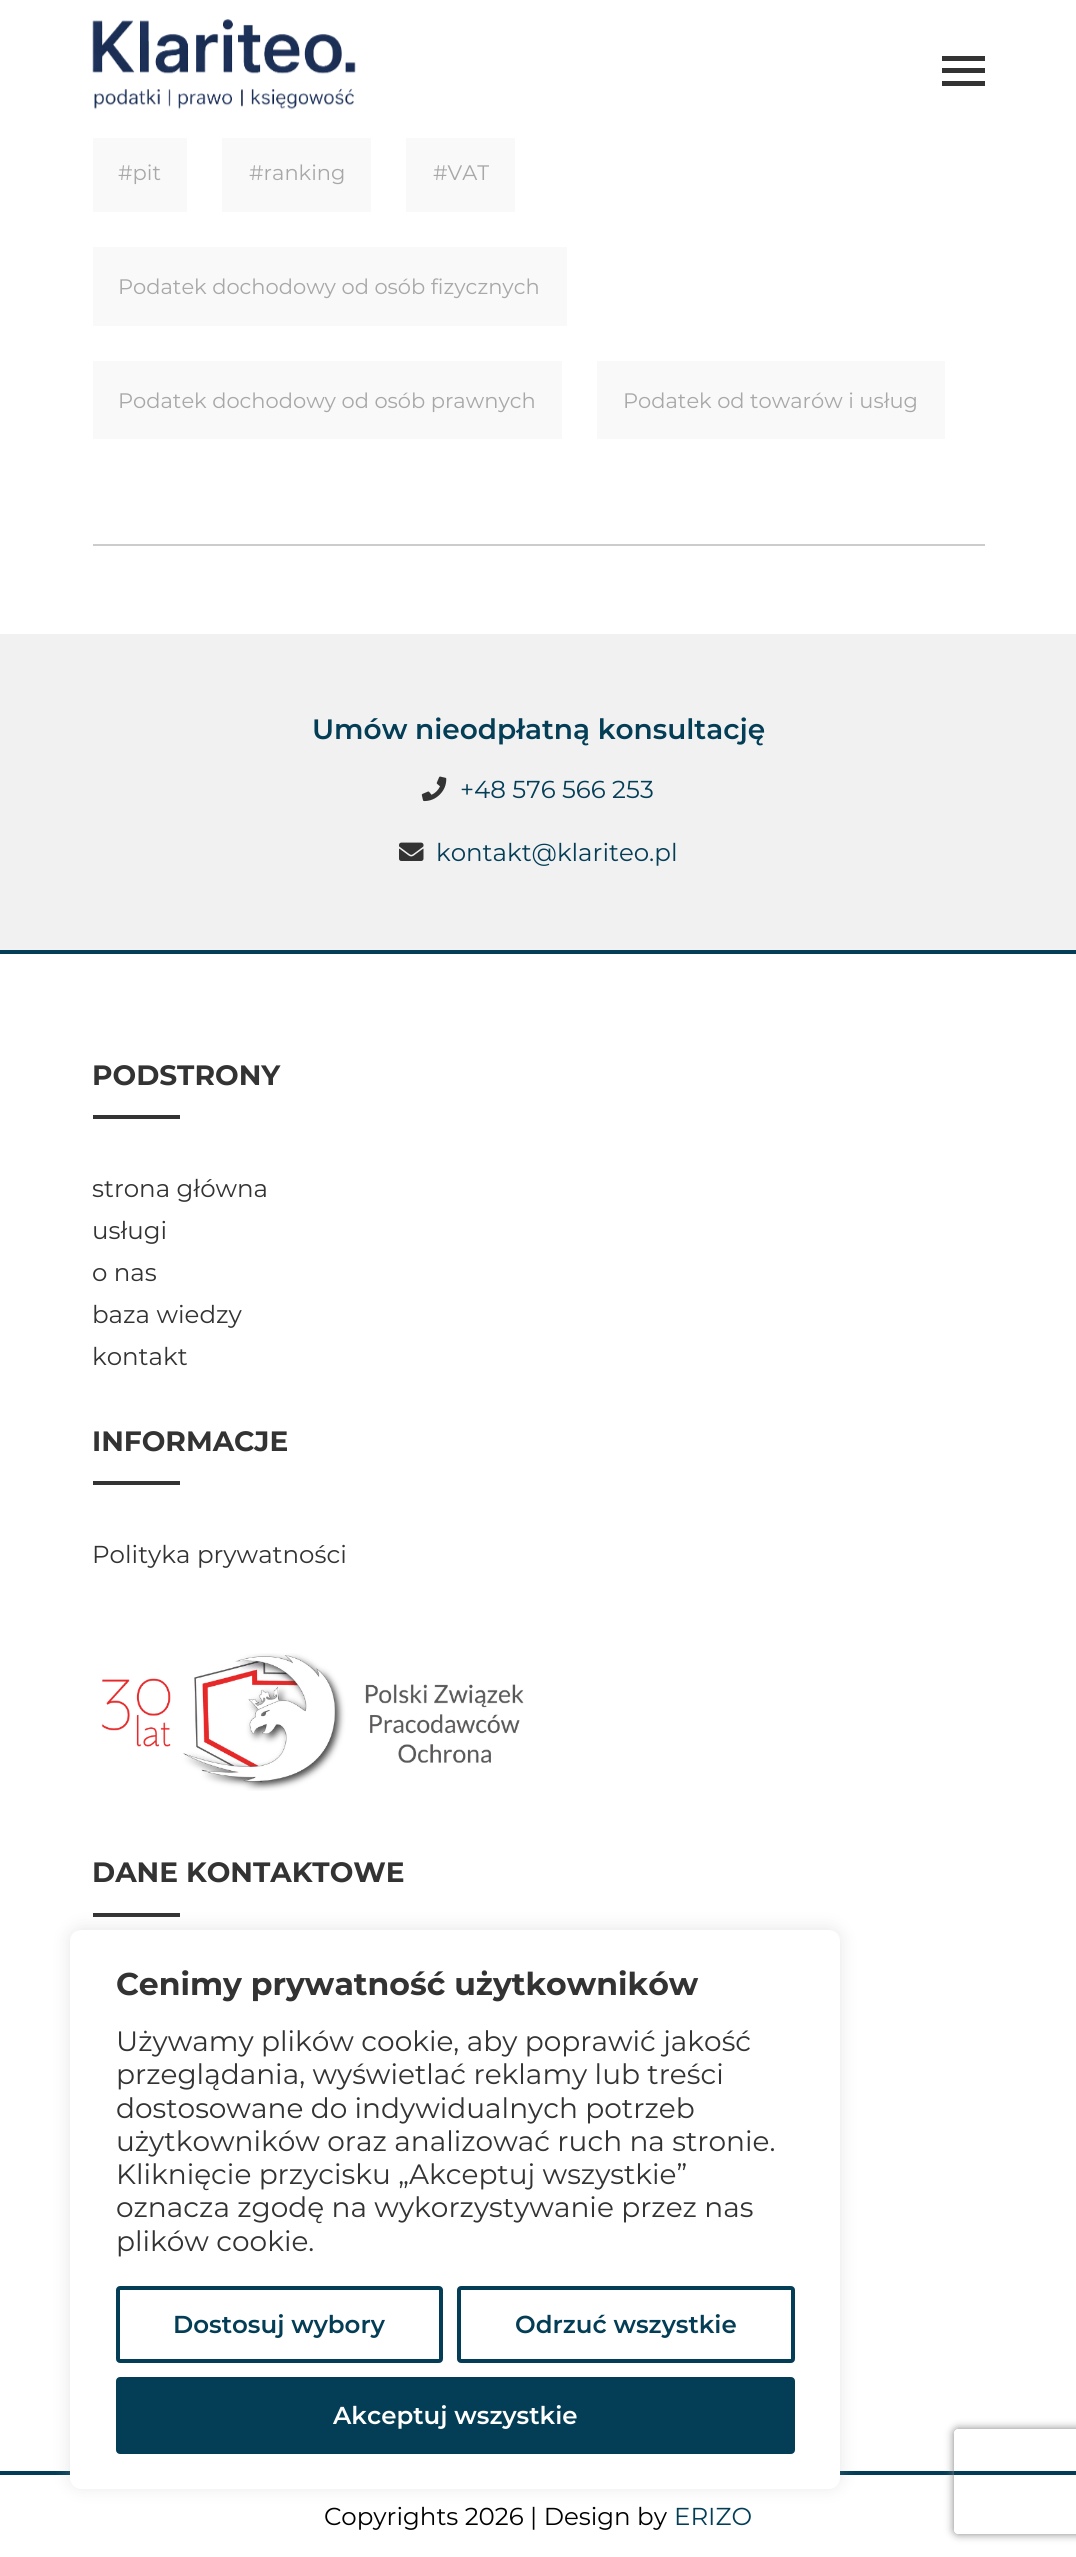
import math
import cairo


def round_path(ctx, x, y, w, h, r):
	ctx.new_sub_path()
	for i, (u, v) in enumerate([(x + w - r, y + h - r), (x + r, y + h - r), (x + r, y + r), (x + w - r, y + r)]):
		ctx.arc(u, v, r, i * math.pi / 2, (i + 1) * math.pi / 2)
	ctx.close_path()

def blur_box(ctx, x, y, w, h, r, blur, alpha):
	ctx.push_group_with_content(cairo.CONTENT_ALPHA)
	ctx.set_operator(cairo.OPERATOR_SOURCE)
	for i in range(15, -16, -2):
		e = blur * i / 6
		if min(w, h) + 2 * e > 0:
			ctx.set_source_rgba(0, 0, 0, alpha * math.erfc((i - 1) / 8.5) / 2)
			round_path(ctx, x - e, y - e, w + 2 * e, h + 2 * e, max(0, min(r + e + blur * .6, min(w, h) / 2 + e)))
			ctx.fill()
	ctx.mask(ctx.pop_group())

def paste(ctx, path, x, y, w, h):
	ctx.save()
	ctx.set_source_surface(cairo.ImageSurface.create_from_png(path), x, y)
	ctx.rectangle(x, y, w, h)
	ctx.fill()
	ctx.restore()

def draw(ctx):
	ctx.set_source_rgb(1, 1, 1)
	ctx.paint()
	paste(ctx, 'media/1.png', 92, 19, 264, 91)
	ctx.set_source_rgb(0.2, 0.2, 0.2)
	ctx.rectangle(942, 68, 43, 5)
	ctx.rectangle(942, 56, 43, 5)
	ctx.rectangle(942, 81, 43, 5)
	ctx.fill()
	ctx.set_source_rgb(0.8, 0.8, 0.8)
	ctx.rectangle(93, 544, 892, 2)
	ctx.fill()
	ctx.set_source_rgb(0.973, 0.973, 0.973)
	ctx.rectangle(93, 138, 94, 74)
	ctx.fill()
	ctx.select_font_face('Montserrat')
	ctx.set_font_size(21)
	ctx.set_source_rgb(0.659, 0.659, 0.659)
	ctx.move_to(118, 180)
	ctx.show_text('#pit')
	ctx.set_source_rgb(0.973, 0.973, 0.973)
	ctx.rectangle(222, 138, 149, 74)
	ctx.fill()
	ctx.set_source_rgb(0.659, 0.659, 0.659)
	ctx.move_to(249, 180)
	ctx.show_text('#ranking')
	ctx.set_source_rgb(0.973, 0.973, 0.973)
	ctx.rectangle(406, 138, 109, 74)
	ctx.fill()
	ctx.set_source_rgb(0.659, 0.659, 0.659)
	ctx.move_to(433, 180)
	ctx.show_text('#VAT')
	ctx.set_source_rgb(0.973, 0.973, 0.973)
	ctx.rectangle(93, 247, 474, 79)
	ctx.fill()
	ctx.set_source_rgb(0.659, 0.659, 0.659)
	ctx.move_to(118, 294)
	ctx.show_text('Podatek dochodowy od osób fizycznych')
	ctx.set_source_rgb(0.973, 0.973, 0.973)
	ctx.rectangle(93, 361, 469, 78)
	ctx.fill()
	ctx.set_source_rgb(0.659, 0.659, 0.659)
	ctx.move_to(118, 408)
	ctx.show_text('Podatek dochodowy od osób prawnych')
	ctx.set_source_rgb(0.973, 0.973, 0.973)
	ctx.rectangle(597, 361, 348, 78)
	ctx.fill()
	ctx.set_source_rgb(0.659, 0.659, 0.659)
	ctx.move_to(623, 408)
	ctx.show_text('Podatek od towarów i usług')
	ctx.set_source_rgb(0.945, 0.945, 0.945)
	ctx.rectangle(0, 634, 1076, 316)
	ctx.fill()
	ctx.select_font_face('Montserrat SemiBold')
	ctx.set_font_size(28)
	ctx.set_source_rgb(0.012, 0.239, 0.337)
	ctx.move_to(312, 739)
	ctx.show_text('Umów nieodpłatną konsultację')
	paste(ctx, 'media/2.png', 421, 776, 26, 26)
	ctx.select_font_face('Montserrat')
	ctx.set_font_size(24.5)
	ctx.move_to(460, 798)
	ctx.show_text('+48 576 566 253')
	paste(ctx, 'media/3.png', 399, 842, 25, 19)
	ctx.move_to(436, 861)
	ctx.show_text('kontakt@klariteo.pl')
	ctx.rectangle(0, 950, 1076, 4)
	ctx.fill()
	ctx.select_font_face('Montserrat', cairo.FONT_SLANT_NORMAL, cairo.FONT_WEIGHT_BOLD)
	ctx.set_font_size(28)
	ctx.set_source_rgb(0.2, 0.2, 0.2)
	ctx.move_to(92, 1085)
	ctx.show_text('PODSTRONY')
	ctx.rectangle(93, 1115, 87, 4)
	ctx.fill()
	ctx.select_font_face('Montserrat')
	ctx.set_font_size(24.5)
	for x, y, s in [
		(92, 1197, 'strona główna'),
		(92, 1239, 'usługi'),
		(92, 1281, 'o nas'),
		(92, 1323, 'baza wiedzy'),
		(92, 1365, 'kontakt'),
	]:
		ctx.move_to(x, y)
		ctx.show_text(s)
	ctx.select_font_face('Montserrat', cairo.FONT_SLANT_NORMAL, cairo.FONT_WEIGHT_BOLD)
	ctx.set_font_size(28)
	ctx.move_to(92, 1451)
	ctx.show_text('INFORMACJE')
	ctx.rectangle(93, 1481, 87, 4)
	ctx.fill()
	ctx.select_font_face('Montserrat')
	ctx.set_font_size(24.5)
	ctx.move_to(92, 1563)
	ctx.show_text('Polityka prywatności')
	paste(ctx, 'media/4.png', 101, 1653, 423, 138)
	ctx.select_font_face('Montserrat', cairo.FONT_SLANT_NORMAL, cairo.FONT_WEIGHT_BOLD)
	ctx.set_font_size(28)
	ctx.move_to(92, 1882)
	ctx.show_text('DANE KONTAKTOWE')
	ctx.rectangle(93, 1913, 87, 4)
	ctx.fill()
	ctx.set_source_rgb(0.012, 0.239, 0.337)
	ctx.rectangle(0, 2471, 1076, 4)
	ctx.fill()
	ctx.set_source_rgb(0.675, 0.671, 0.671)
	blur_box(ctx, 70, 1929, 770, 558, 11, 9, 0.3)
	ctx.set_source_rgb(1, 1, 1)
	round_path(ctx, 70, 1930, 770, 559, 11)
	ctx.fill()
	ctx.set_font_size(31.5)
	ctx.set_source_rgb(0.2, 0.2, 0.2)
	ctx.move_to(116, 1995)
	ctx.show_text('Cenimy prywatność użytkowników')
	ctx.select_font_face('Montserrat')
	ctx.set_font_size(28)
	for x, y, s in [
		(116, 2051, 'Używamy plików cookie, aby poprawić jakość'),
		(116, 2084, 'przeglądania, wyświetlać reklamy lub treści'),
		(116, 2118, 'dostosowane do indywidualnych potrzeb'),
		(116, 2151, 'użytkowników oraz analizować ruch na stronie.'),
		(116, 2184, 'Kliknięcie przycisku „Akceptuj wszystkie”'),
		(116, 2217, 'oznacza zgodę na wykorzystywanie przez nas'),
		(116, 2251, 'plików cookie.'),
	]:
		ctx.move_to(x, y)
		ctx.show_text(s)
	round_path(ctx, 118, 2288, 323, 73, 2)
	ctx.set_source_rgb(0.012, 0.239, 0.337)
	ctx.set_line_width(4)
	ctx.stroke()
	ctx.select_font_face('Montserrat SemiBold')
	ctx.set_font_size(24.5)
	ctx.move_to(173, 2333)
	ctx.show_text('Dostosuj wybory')
	round_path(ctx, 459, 2288, 334, 73, 2)
	ctx.stroke()
	ctx.move_to(515, 2333)
	ctx.show_text('Odrzuć wszystkie')
	round_path(ctx, 118, 2379, 675, 73, 2)
	ctx.fill_preserve()
	ctx.stroke()
	ctx.set_source_rgb(1, 1, 1)
	ctx.move_to(333, 2424)
	ctx.show_text('Akceptuj wszystkie')
	ctx.select_font_face('Montserrat')
	ctx.set_source_rgb(0, 0, 0)
	ctx.move_to(324, 2525)
	ctx.show_text('Copyrights 2026 | Design by')
	ctx.set_source_rgb(0.012, 0.239, 0.337)
	ctx.move_to(674, 2525)
	ctx.show_text('ERIZO')
	ctx.save()
	ctx.set_fill_rule(cairo.FILL_RULE_EVEN_ODD)
	ctx.new_path()
	ctx.move_to(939, 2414)
	ctx.line_to(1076, 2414)
	ctx.line_to(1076, 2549)
	ctx.line_to(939, 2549)
	ctx.close_path()
	ctx.move_to(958, 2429)
	ctx.line_to(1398, 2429)
	ctx.curve_to(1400, 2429, 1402, 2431, 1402, 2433)
	ctx.line_to(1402, 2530)
	ctx.curve_to(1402, 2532, 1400, 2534, 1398, 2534)
	ctx.line_to(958, 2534)
	ctx.curve_to(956, 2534, 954, 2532, 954, 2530)
	ctx.line_to(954, 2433)
	ctx.curve_to(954, 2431, 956, 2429, 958, 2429)
	ctx.close_path()
	ctx.clip()
	ctx.set_source_rgb(0.502, 0.502, 0.502)
	blur_box(ctx, 954, 2429, 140, 105, 4, 4.5, 1)
	ctx.restore()


surface = cairo.ImageSurface(cairo.FORMAT_RGB24, 1076, 2557)
ctx = cairo.Context(surface)
options = cairo.FontOptions()
options.set_hint_metrics(cairo.HINT_METRICS_OFF)
options.set_hint_style(cairo.HINT_STYLE_NONE)
ctx.set_font_options(options)
ctx.set_miter_limit(4)
draw(ctx)
surface.write_to_png('image.png')
